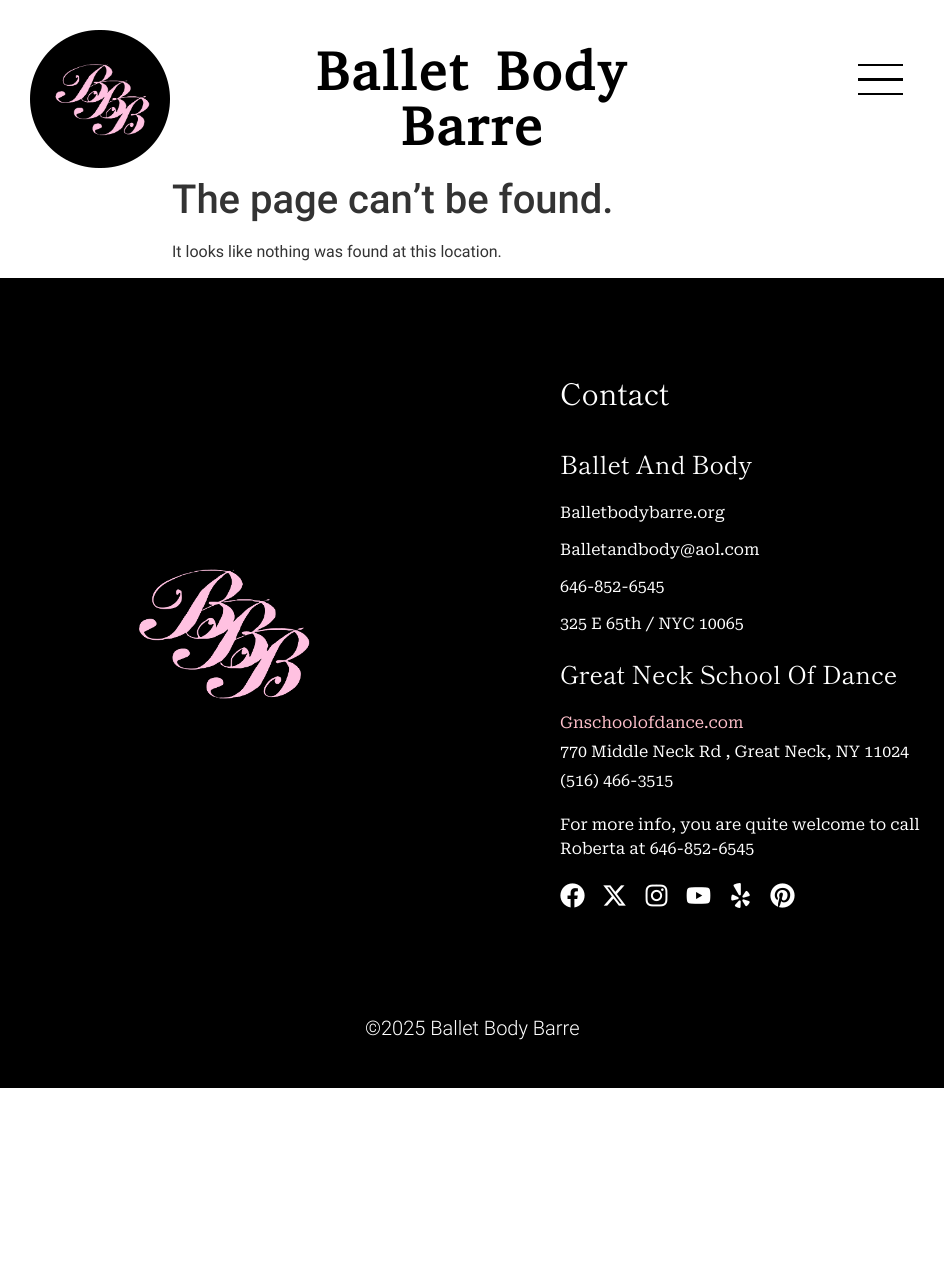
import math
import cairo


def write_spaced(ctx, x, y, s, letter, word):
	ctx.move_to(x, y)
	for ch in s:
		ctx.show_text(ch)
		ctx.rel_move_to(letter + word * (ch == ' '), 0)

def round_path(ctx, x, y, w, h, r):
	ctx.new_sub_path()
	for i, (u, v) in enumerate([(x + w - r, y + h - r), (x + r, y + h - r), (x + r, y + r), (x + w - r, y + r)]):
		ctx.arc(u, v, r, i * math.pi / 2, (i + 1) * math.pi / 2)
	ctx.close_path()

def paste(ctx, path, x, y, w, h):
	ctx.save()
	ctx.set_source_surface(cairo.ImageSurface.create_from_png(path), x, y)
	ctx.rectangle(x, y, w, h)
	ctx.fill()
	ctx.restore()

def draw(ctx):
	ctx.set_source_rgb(1, 1, 1)
	ctx.paint()
	ctx.set_source_rgb(0, 0, 0)
	round_path(ctx, 30, 30, 140, 138, 69)
	ctx.fill()
	paste(ctx, 'media/1.png', 55, 64, 95, 72)
	ctx.select_font_face('Abyssinica SIL', cairo.FONT_SLANT_NORMAL, cairo.FONT_WEIGHT_BOLD)
	ctx.set_font_size(55)
	write_spaced(ctx, 316, 90, 'Ballet Body', 2.25, 0)
	write_spaced(ctx, 401, 145, 'Barre', 2.25, 0)
	ctx.new_path()
	ctx.move_to(858, 64)
	ctx.line_to(903, 64)
	ctx.line_to(903, 66)
	ctx.line_to(858, 66)
	ctx.close_path()
	ctx.move_to(858, 93)
	ctx.line_to(903, 93)
	ctx.line_to(903, 95)
	ctx.line_to(858, 95)
	ctx.close_path()
	ctx.move_to(858, 78)
	ctx.line_to(903, 78)
	ctx.line_to(903, 81)
	ctx.line_to(858, 81)
	ctx.close_path()
	ctx.fill()
	ctx.select_font_face('Roboto Medium')
	ctx.set_font_size(40)
	ctx.set_source_rgb(0.2, 0.2, 0.2)
	ctx.move_to(172, 213)
	ctx.show_text('The page can’t be found.')
	ctx.select_font_face('Roboto')
	ctx.set_font_size(16)
	ctx.move_to(172, 257)
	ctx.show_text('It looks like nothing was found at this location.')
	ctx.set_source_rgb(0, 0, 0)
	ctx.rectangle(0, 278, 944, 810)
	ctx.fill()
	paste(ctx, 'media/2.png', 139, 569, 171, 130)
	ctx.select_font_face('Shippori Mincho')
	ctx.set_font_size(30)
	ctx.set_source_rgb(1, 1, 1)
	ctx.move_to(560, 405)
	ctx.show_text('Contact')
	ctx.set_font_size(25)
	ctx.move_to(560, 474)
	ctx.show_text('Ballet And Body')
	ctx.select_font_face('Roboto Serif')
	ctx.set_font_size(16)
	for x, y, s in [
		(560, 518, 'Balletbodybarre.org'),
		(560, 555, 'Balletandbody@aol.com'),
		(560, 592, '646-852-6545'),
		(560, 629, '325 E 65th / NYC 10065'),
	]:
		ctx.move_to(x, y)
		ctx.show_text(s)
	ctx.select_font_face('Shippori Mincho')
	ctx.set_font_size(25)
	ctx.move_to(560, 684)
	ctx.show_text('Great Neck School Of Dance')
	ctx.select_font_face('Roboto Serif')
	ctx.set_font_size(16)
	ctx.set_source_rgb(1, 0.753, 0.796)
	ctx.move_to(560, 728)
	ctx.show_text('Gnschoolofdance.com')
	ctx.set_source_rgb(1, 1, 1)
	for x, y, s in [
		(560, 757, '770 Middle Neck Rd , Great Neck, NY 11024'),
		(560, 786, '(516) 466-3515'),
		(560, 830, 'For more info, you are quite welcome to call'),
		(560, 854, 'Roberta at 646-852-6545'),
	]:
		ctx.move_to(x, y)
		ctx.show_text(s)
	paste(ctx, 'media/3.png', 560, 883, 25, 25)
	paste(ctx, 'media/4.png', 603, 885, 23, 21)
	paste(ctx, 'media/5.png', 645, 884, 23, 23)
	paste(ctx, 'media/6.png', 686, 887, 25, 17)
	paste(ctx, 'media/7.png', 731, 883, 19, 25)
	paste(ctx, 'media/8.png', 770, 883, 25, 25)
	ctx.select_font_face('Roboto Light')
	ctx.set_font_size(20)
	ctx.move_to(365, 1035)
	ctx.show_text('©2025 Ballet Body Barre')


surface = cairo.ImageSurface(cairo.FORMAT_RGB24, 944, 1265)
ctx = cairo.Context(surface)
options = cairo.FontOptions()
options.set_hint_metrics(cairo.HINT_METRICS_OFF)
options.set_hint_style(cairo.HINT_STYLE_NONE)
ctx.set_font_options(options)
ctx.set_miter_limit(4)
draw(ctx)
surface.write_to_png('image.png')
